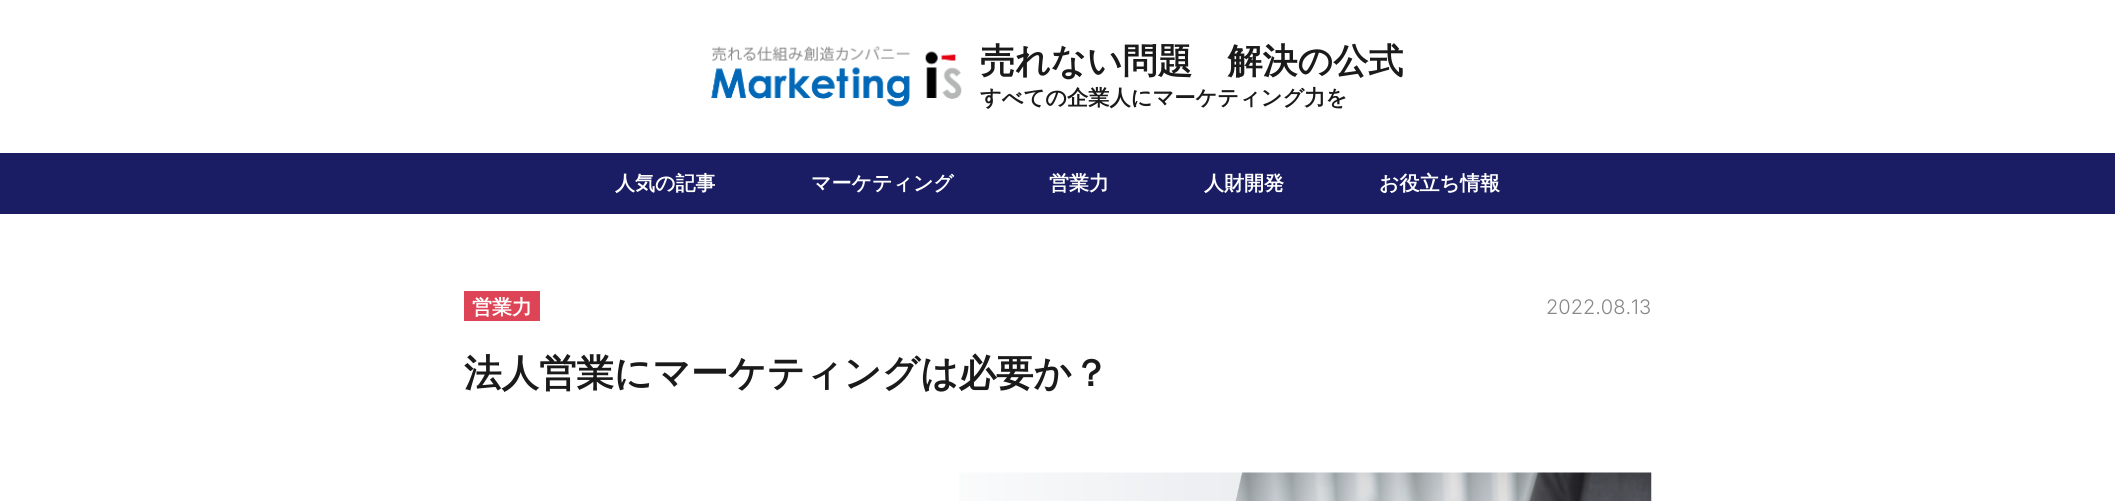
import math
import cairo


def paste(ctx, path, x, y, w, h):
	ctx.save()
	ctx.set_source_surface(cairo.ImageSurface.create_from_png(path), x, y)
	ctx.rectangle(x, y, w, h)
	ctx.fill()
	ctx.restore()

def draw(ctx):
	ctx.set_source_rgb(1, 1, 1)
	ctx.paint()
	paste(ctx, 'media/1.png', 711, 46, 251, 61)
	ctx.select_font_face('WenQuanYi Zen Hei', cairo.FONT_SLANT_NORMAL, cairo.FONT_WEIGHT_BOLD)
	ctx.set_font_size(35)
	ctx.set_source_rgb(0.102, 0.102, 0.102)
	ctx.move_to(980, 73)
	ctx.show_text('売れない問題　解決の公式')
	ctx.set_font_size(21.25)
	ctx.move_to(980, 105)
	ctx.show_text('すべての企業人にマーケティング力を')
	ctx.set_source_rgb(0.102, 0.114, 0.388)
	ctx.new_path()
	ctx.move_to(1495, 214)
	ctx.line_to(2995, 214)
	ctx.line_to(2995, 153)
	ctx.line_to(1808, 153)
	ctx.line_to(1808, 214)
	ctx.close_path()
	ctx.fill()
	ctx.new_path()
	ctx.move_to(-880, 153)
	ctx.line_to(-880, 214)
	ctx.line_to(620, 214)
	ctx.line_to(308, 214)
	ctx.line_to(308, 153)
	ctx.close_path()
	ctx.fill()
	ctx.rectangle(308, 153, 1500, 61)
	ctx.fill()
	ctx.set_font_size(20)
	ctx.set_source_rgb(1, 1, 1)
	for x, y, s in [
		(615, 190, '人気の記事'),
		(811, 190, 'マーケティング'),
		(1049, 190, '営業力'),
		(1204, 190, '人財開発'),
		(1379, 190, 'お役立ち情報'),
	]:
		ctx.move_to(x, y)
		ctx.show_text(s)
	ctx.set_source_rgb(0.867, 0.267, 0.333)
	ctx.rectangle(464, 291, 76, 30)
	ctx.fill()
	ctx.set_source_rgb(1, 1, 1)
	ctx.move_to(472, 314)
	ctx.show_text('営業力')
	ctx.select_font_face('Inter Light')
	ctx.set_source_rgb(0.533, 0.533, 0.533)
	ctx.move_to(1546, 314)
	ctx.show_text('2022.08.13')
	ctx.select_font_face('WenQuanYi Zen Hei', cairo.FONT_SLANT_NORMAL, cairo.FONT_WEIGHT_BOLD)
	ctx.set_font_size(37.5)
	ctx.set_source_rgb(0.102, 0.102, 0.102)
	ctx.move_to(464, 386)
	ctx.show_text('法人営業にマーケティングは必要か？')
	paste(ctx, 'media/2.png', 959, 472, 693, 29)


surface = cairo.ImageSurface(cairo.FORMAT_RGB24, 2115, 501)
ctx = cairo.Context(surface)
options = cairo.FontOptions()
options.set_hint_metrics(cairo.HINT_METRICS_OFF)
options.set_hint_style(cairo.HINT_STYLE_NONE)
ctx.set_font_options(options)
ctx.set_miter_limit(4)
draw(ctx)
surface.write_to_png('image.png')
